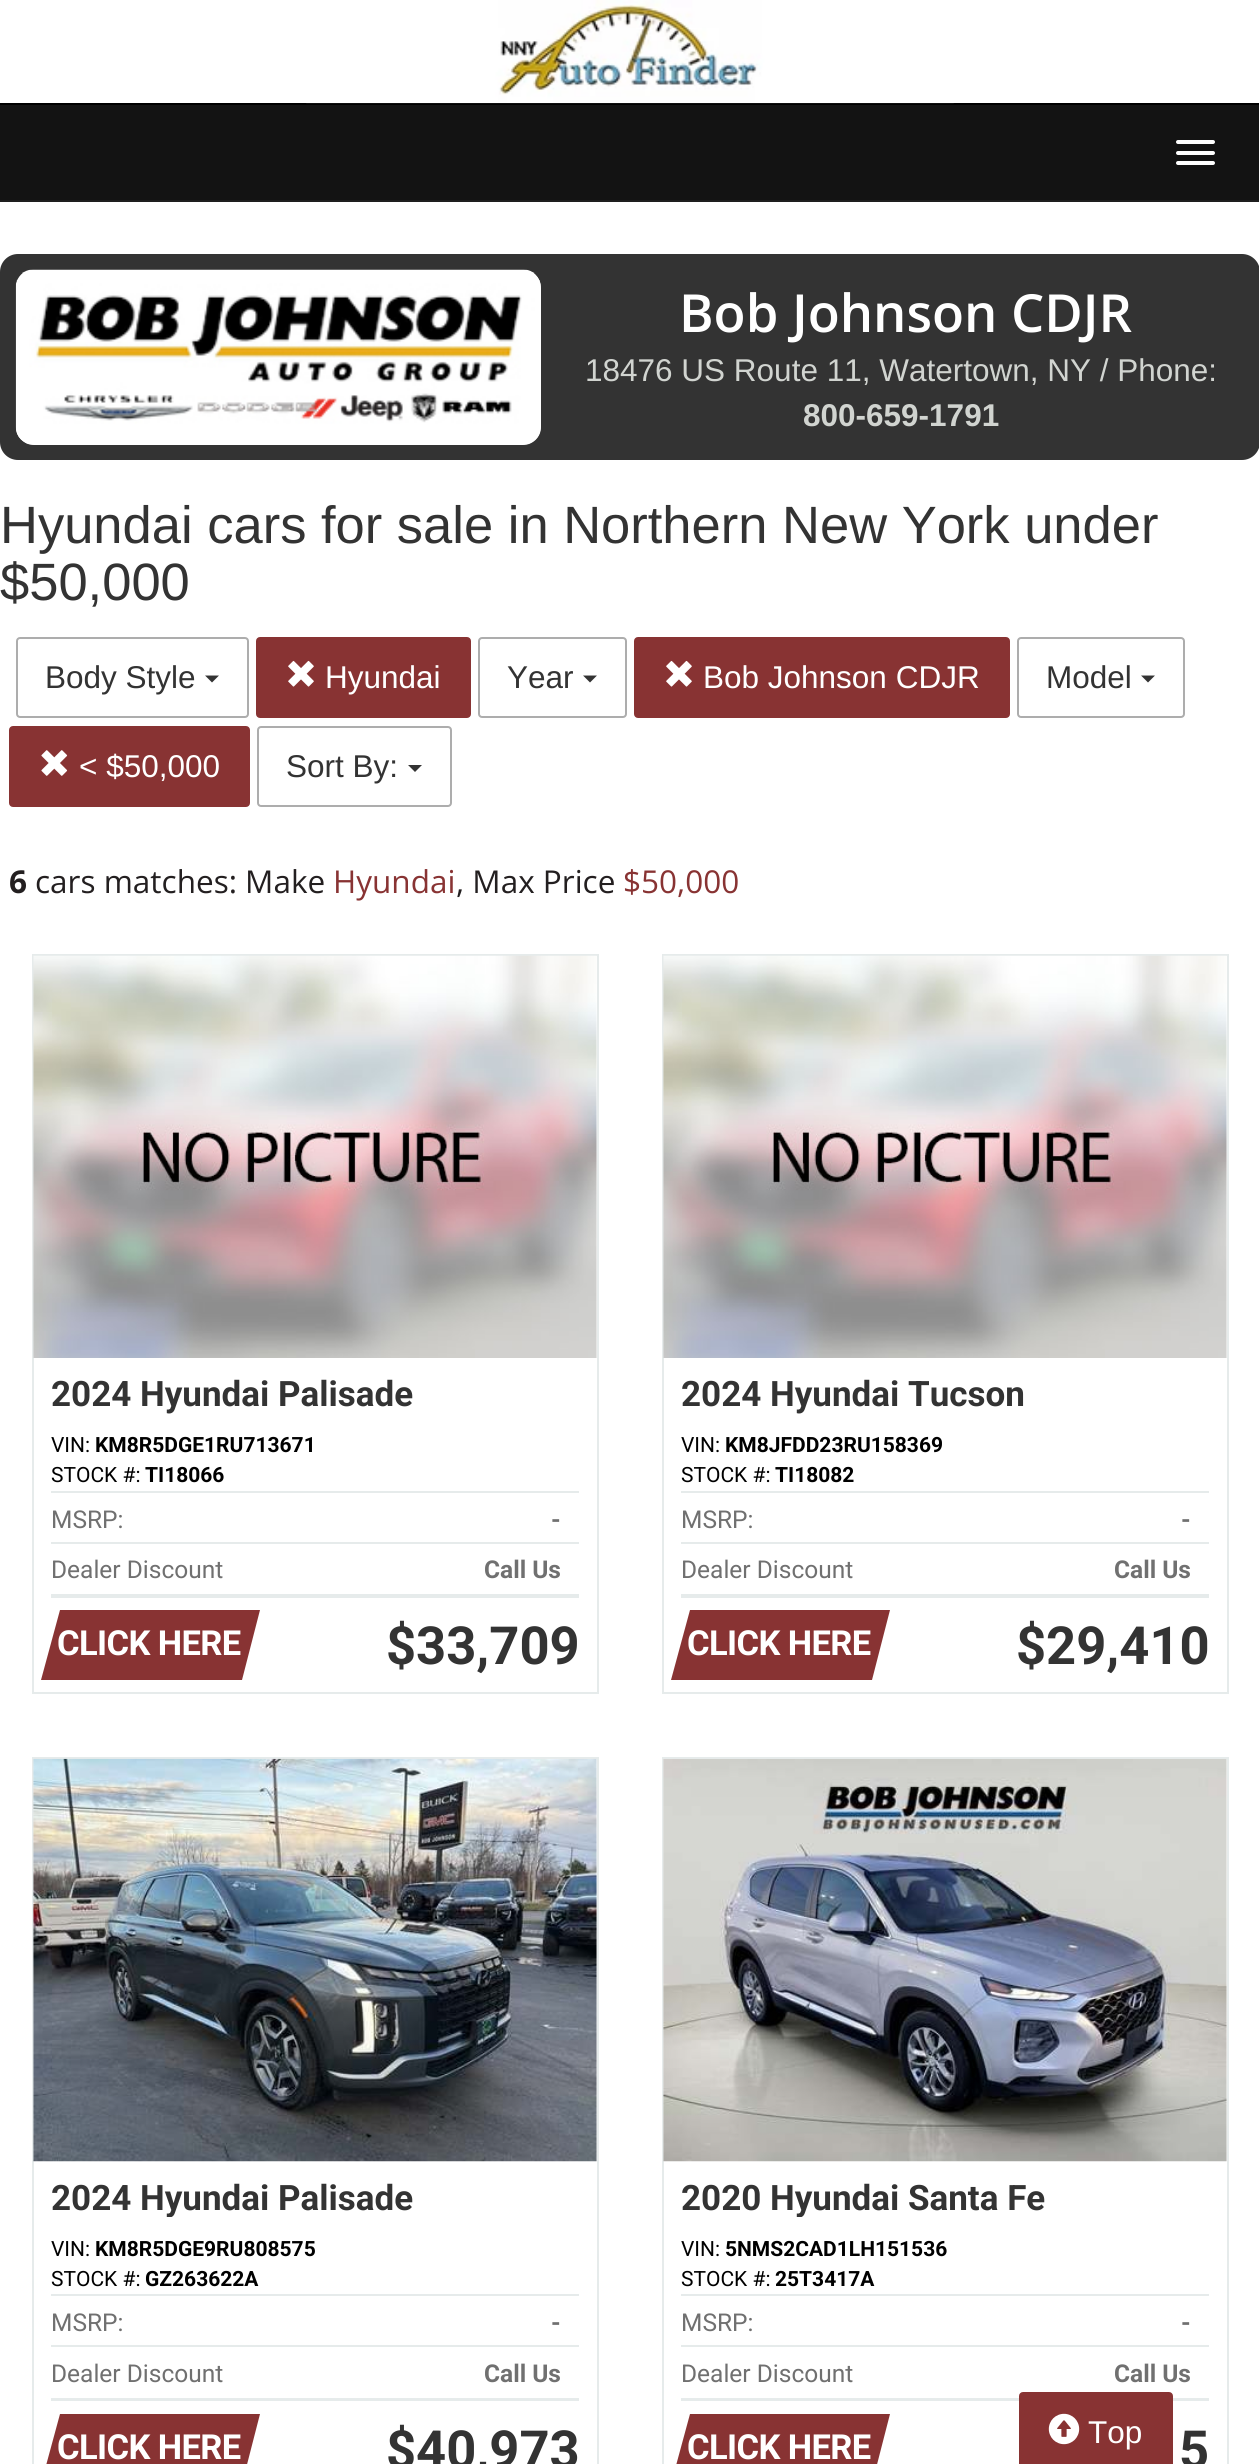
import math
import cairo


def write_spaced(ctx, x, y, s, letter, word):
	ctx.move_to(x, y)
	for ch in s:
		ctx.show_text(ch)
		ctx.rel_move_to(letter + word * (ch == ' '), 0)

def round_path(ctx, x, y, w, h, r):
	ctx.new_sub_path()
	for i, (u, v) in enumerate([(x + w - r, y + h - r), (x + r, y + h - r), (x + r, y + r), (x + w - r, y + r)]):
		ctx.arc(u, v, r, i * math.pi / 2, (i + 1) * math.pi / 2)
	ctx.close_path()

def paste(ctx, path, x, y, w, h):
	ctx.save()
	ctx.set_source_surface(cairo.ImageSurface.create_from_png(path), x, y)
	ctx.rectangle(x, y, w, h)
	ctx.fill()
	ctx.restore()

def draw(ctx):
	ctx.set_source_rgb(1, 1, 1)
	ctx.paint()
	ctx.set_source_rgb(0, 0, 0)
	ctx.rectangle(0, 103, 1259, 2)
	ctx.fill()
	paste(ctx, 'media/1.png', 306, 0, 648, 104)
	ctx.set_source_rgb(0.078, 0.078, 0.078)
	ctx.rectangle(0, 105, 1259, 95)
	ctx.fill()
	ctx.set_source_rgb(0.118, 0.118, 0.118)
	ctx.rectangle(0, 200, 1259, 2)
	ctx.fill()
	ctx.set_source_rgb(1, 1, 1)
	round_path(ctx, 1176, 140, 39, 4, 2)
	ctx.fill()
	round_path(ctx, 1176, 151, 39, 4, 2)
	ctx.fill()
	round_path(ctx, 1176, 161, 39, 4, 2)
	ctx.fill()
	ctx.set_source_rgb(0.2, 0.2, 0.2)
	round_path(ctx, 0, 254, 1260, 206, 18)
	ctx.fill()
	ctx.set_source_rgb(1, 1, 1)
	round_path(ctx, 16, 270, 525, 175, 18)
	ctx.fill()
	paste(ctx, 'media/2.png', 15, 269, 526, 176)
	ctx.select_font_face('Open Sans SemiBold')
	ctx.set_font_size(52.5)
	ctx.move_to(679, 332)
	ctx.show_text('Bob Johnson CDJR')
	ctx.select_font_face('Liberation Sans')
	ctx.set_font_size(31.5)
	ctx.set_source_rgb(0.82, 0.831, 0.816)
	ctx.move_to(585, 381)
	ctx.show_text('18476 US Route 11, Watertown, NY / Phone:')
	ctx.select_font_face('Liberation Sans', cairo.FONT_SLANT_NORMAL, cairo.FONT_WEIGHT_BOLD)
	ctx.move_to(803, 426)
	ctx.show_text('800-659-1791')
	ctx.select_font_face('Liberation Sans')
	ctx.set_font_size(52.5)
	ctx.set_source_rgb(0.2, 0.2, 0.2)
	ctx.move_to(0, 543)
	ctx.show_text('Hyundai cars for sale in Northern New York under')
	ctx.move_to(0, 600)
	ctx.show_text('$50,000')
	round_path(ctx, 17, 638, 231, 79, 3)
	ctx.set_source_rgb(0.678, 0.678, 0.678)
	ctx.stroke()
	ctx.set_font_size(31.5)
	ctx.set_source_rgb(0.2, 0.2, 0.2)
	ctx.move_to(45, 688)
	ctx.show_text('Body Style')
	ctx.new_path()
	ctx.move_to(205, 675.5)
	ctx.line_to(219, 675.5)
	ctx.line_to(212, 682.5)
	ctx.close_path()
	ctx.fill()
	ctx.set_source_rgb(0.533, 0.2, 0.2)
	round_path(ctx, 257, 638, 213, 79, 3)
	ctx.fill_preserve()
	ctx.stroke()
	paste(ctx, 'media/3.png', 288, 660, 26, 27)
	ctx.set_source_rgb(1, 1, 1)
	ctx.move_to(325, 688)
	ctx.show_text('Hyundai')
	round_path(ctx, 479, 638, 147, 79, 3)
	ctx.set_source_rgb(0.678, 0.678, 0.678)
	ctx.stroke()
	ctx.set_source_rgb(0.2, 0.2, 0.2)
	ctx.move_to(507, 688)
	ctx.show_text('Year')
	ctx.new_path()
	ctx.move_to(583, 675.5)
	ctx.line_to(597, 675.5)
	ctx.line_to(590, 682.5)
	ctx.close_path()
	ctx.fill()
	ctx.set_source_rgb(0.533, 0.2, 0.2)
	round_path(ctx, 635, 638, 374, 79, 3)
	ctx.fill_preserve()
	ctx.stroke()
	paste(ctx, 'media/3.png', 666, 660, 26, 27)
	ctx.set_source_rgb(1, 1, 1)
	ctx.move_to(703, 688)
	ctx.show_text('Bob Johnson CDJR')
	round_path(ctx, 1018, 638, 166, 79, 3)
	ctx.set_source_rgb(0.678, 0.678, 0.678)
	ctx.stroke()
	ctx.set_source_rgb(0.2, 0.2, 0.2)
	ctx.move_to(1046, 688)
	ctx.show_text('Model')
	ctx.new_path()
	ctx.move_to(1141, 675.5)
	ctx.line_to(1155, 675.5)
	ctx.line_to(1148, 682.5)
	ctx.close_path()
	ctx.fill()
	ctx.set_source_rgb(0.533, 0.2, 0.2)
	round_path(ctx, 10, 727, 239, 79, 3)
	ctx.fill_preserve()
	ctx.stroke()
	paste(ctx, 'media/4.png', 41, 750, 27, 26)
	ctx.set_source_rgb(1, 1, 1)
	ctx.move_to(79, 777)
	ctx.show_text('< $50,000')
	round_path(ctx, 258, 727, 193, 79, 3)
	ctx.set_source_rgb(0.678, 0.678, 0.678)
	ctx.stroke()
	ctx.set_source_rgb(0.2, 0.2, 0.2)
	ctx.move_to(286, 777)
	ctx.show_text('Sort By:')
	ctx.new_path()
	ctx.move_to(408, 765)
	ctx.line_to(422, 765)
	ctx.line_to(415, 772)
	ctx.close_path()
	ctx.fill()
	ctx.select_font_face('Open Sans', cairo.FONT_SLANT_NORMAL, cairo.FONT_WEIGHT_BOLD)
	ctx.set_source_rgb(0.137, 0.122, 0.125)
	ctx.move_to(9, 893)
	ctx.show_text('6')
	ctx.select_font_face('Open Sans')
	ctx.move_to(35, 893)
	ctx.show_text('cars matches: Make')
	ctx.set_source_rgb(0.533, 0.2, 0.2)
	ctx.move_to(333, 893)
	ctx.show_text('Hyundai')
	ctx.set_source_rgb(0.137, 0.122, 0.125)
	ctx.move_to(456, 893)
	ctx.show_text(', Max Price')
	ctx.set_source_rgb(0.533, 0.2, 0.2)
	ctx.move_to(623, 893)
	ctx.show_text('$50,000')
	ctx.rectangle(33, 955, 565, 738)
	ctx.set_source_rgb(0.902, 0.918, 0.918)
	ctx.stroke()
	paste(ctx, 'media/5.png', 33, 955, 564, 403)
	ctx.select_font_face('Roboto', cairo.FONT_SLANT_NORMAL, cairo.FONT_WEIGHT_BOLD)
	ctx.set_font_size(35)
	ctx.set_source_rgb(0.2, 0.2, 0.2)
	ctx.move_to(51, 1406)
	ctx.show_text('2024 Hyundai Palisade')
	ctx.select_font_face('Roboto')
	ctx.set_font_size(21)
	ctx.set_source_rgb(0, 0, 0)
	ctx.move_to(51, 1452)
	ctx.show_text('VIN:')
	ctx.select_font_face('Roboto', cairo.FONT_SLANT_NORMAL, cairo.FONT_WEIGHT_BOLD)
	ctx.move_to(95, 1452)
	ctx.show_text('KM8R5DGE1RU713671')
	ctx.select_font_face('Roboto')
	ctx.move_to(51, 1482)
	ctx.show_text('STOCK #:')
	ctx.select_font_face('Roboto', cairo.FONT_SLANT_NORMAL, cairo.FONT_WEIGHT_BOLD)
	ctx.move_to(145, 1482)
	ctx.show_text('TI18066')
	ctx.set_source_rgb(0.902, 0.918, 0.918)
	ctx.rectangle(51, 1491, 528, 2)
	ctx.fill()
	ctx.rectangle(51, 1542, 528, 2)
	ctx.fill()
	ctx.select_font_face('Roboto')
	ctx.set_font_size(24.5)
	ctx.set_source_rgb(0.439, 0.439, 0.439)
	ctx.move_to(51, 1528)
	ctx.show_text('MSRP:')
	ctx.select_font_face('Roboto', cairo.FONT_SLANT_NORMAL, cairo.FONT_WEIGHT_BOLD)
	ctx.move_to(551, 1528)
	ctx.show_text('-')
	ctx.set_source_rgb(0.902, 0.918, 0.918)
	ctx.rectangle(51, 1594, 528, 4)
	ctx.fill()
	ctx.select_font_face('Roboto')
	ctx.set_source_rgb(0.439, 0.439, 0.439)
	ctx.move_to(51, 1578)
	ctx.show_text('Dealer Discount')
	ctx.select_font_face('Roboto', cairo.FONT_SLANT_NORMAL, cairo.FONT_WEIGHT_BOLD)
	ctx.move_to(484, 1578)
	ctx.show_text('Call Us')
	ctx.set_source_rgb(0.533, 0.2, 0.2)
	ctx.new_path()
	ctx.move_to(60, 1610)
	ctx.line_to(260, 1610)
	ctx.line_to(242, 1680)
	ctx.line_to(41, 1680)
	ctx.close_path()
	ctx.fill()
	ctx.set_font_size(34.5)
	ctx.set_source_rgb(1, 1, 1)
	write_spaced(ctx, 57, 1655, 'CLICK HERE', -0.6, 0)
	ctx.set_font_size(52.5)
	ctx.set_source_rgb(0.2, 0.2, 0.2)
	ctx.move_to(386, 1664)
	ctx.show_text('$33,709')
	ctx.rectangle(663, 955, 565, 738)
	ctx.set_source_rgb(0.902, 0.918, 0.918)
	ctx.stroke()
	paste(ctx, 'media/5.png', 663, 955, 564, 403)
	ctx.set_font_size(35)
	ctx.set_source_rgb(0.2, 0.2, 0.2)
	ctx.move_to(681, 1406)
	ctx.show_text('2024 Hyundai Tucson')
	ctx.select_font_face('Roboto')
	ctx.set_font_size(21)
	ctx.set_source_rgb(0, 0, 0)
	ctx.move_to(681, 1452)
	ctx.show_text('VIN:')
	ctx.select_font_face('Roboto', cairo.FONT_SLANT_NORMAL, cairo.FONT_WEIGHT_BOLD)
	ctx.move_to(725, 1452)
	ctx.show_text('KM8JFDD23RU158369')
	ctx.select_font_face('Roboto')
	ctx.move_to(681, 1482)
	ctx.show_text('STOCK #:')
	ctx.select_font_face('Roboto', cairo.FONT_SLANT_NORMAL, cairo.FONT_WEIGHT_BOLD)
	ctx.move_to(775, 1482)
	ctx.show_text('TI18082')
	ctx.set_source_rgb(0.902, 0.918, 0.918)
	ctx.rectangle(681, 1491, 528, 2)
	ctx.fill()
	ctx.rectangle(681, 1542, 528, 2)
	ctx.fill()
	ctx.select_font_face('Roboto')
	ctx.set_font_size(24.5)
	ctx.set_source_rgb(0.439, 0.439, 0.439)
	ctx.move_to(681, 1528)
	ctx.show_text('MSRP:')
	ctx.select_font_face('Roboto', cairo.FONT_SLANT_NORMAL, cairo.FONT_WEIGHT_BOLD)
	ctx.move_to(1181, 1528)
	ctx.show_text('-')
	ctx.set_source_rgb(0.902, 0.918, 0.918)
	ctx.rectangle(681, 1594, 528, 4)
	ctx.fill()
	ctx.select_font_face('Roboto')
	ctx.set_source_rgb(0.439, 0.439, 0.439)
	ctx.move_to(681, 1578)
	ctx.show_text('Dealer Discount')
	ctx.select_font_face('Roboto', cairo.FONT_SLANT_NORMAL, cairo.FONT_WEIGHT_BOLD)
	ctx.move_to(1114, 1578)
	ctx.show_text('Call Us')
	ctx.set_source_rgb(0.533, 0.2, 0.2)
	ctx.new_path()
	ctx.move_to(690, 1610)
	ctx.line_to(890, 1610)
	ctx.line_to(872, 1680)
	ctx.line_to(671, 1680)
	ctx.close_path()
	ctx.fill()
	ctx.set_font_size(34.5)
	ctx.set_source_rgb(1, 1, 1)
	write_spaced(ctx, 687, 1655, 'CLICK HERE', -0.6, 0)
	ctx.set_font_size(52.5)
	ctx.set_source_rgb(0.2, 0.2, 0.2)
	ctx.move_to(1016, 1664)
	ctx.show_text('$29,410')
	ctx.rectangle(33, 1758, 565, 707)
	ctx.set_source_rgb(0.902, 0.918, 0.918)
	ctx.stroke()
	paste(ctx, 'media/6.png', 33, 1758, 564, 404)
	ctx.save()
	ctx.rectangle(51, 2179, 362, 38)
	ctx.clip()
	ctx.set_font_size(35)
	ctx.set_source_rgb(0.2, 0.2, 0.2)
	ctx.move_to(51, 2210)
	ctx.show_text('2024 Hyundai Palisade')
	ctx.restore()
	ctx.select_font_face('Roboto')
	ctx.set_font_size(21)
	ctx.set_source_rgb(0, 0, 0)
	ctx.move_to(51, 2256)
	ctx.show_text('VIN:')
	ctx.select_font_face('Roboto', cairo.FONT_SLANT_NORMAL, cairo.FONT_WEIGHT_BOLD)
	ctx.move_to(95, 2256)
	ctx.show_text('KM8R5DGE9RU808575')
	ctx.select_font_face('Roboto')
	ctx.move_to(51, 2286)
	ctx.show_text('STOCK #:')
	ctx.select_font_face('Roboto', cairo.FONT_SLANT_NORMAL, cairo.FONT_WEIGHT_BOLD)
	ctx.move_to(145, 2286)
	ctx.show_text('GZ263622A')
	ctx.set_source_rgb(0.902, 0.918, 0.918)
	ctx.rectangle(51, 2294, 528, 2)
	ctx.fill()
	ctx.rectangle(51, 2345, 528, 2)
	ctx.fill()
	ctx.select_font_face('Roboto')
	ctx.set_font_size(24.5)
	ctx.set_source_rgb(0.439, 0.439, 0.439)
	ctx.move_to(51, 2331)
	ctx.show_text('MSRP:')
	ctx.select_font_face('Roboto', cairo.FONT_SLANT_NORMAL, cairo.FONT_WEIGHT_BOLD)
	ctx.move_to(551, 2331)
	ctx.show_text('-')
	ctx.set_source_rgb(0.902, 0.918, 0.918)
	ctx.rectangle(51, 2398, 528, 3)
	ctx.fill()
	ctx.select_font_face('Roboto')
	ctx.set_source_rgb(0.439, 0.439, 0.439)
	ctx.move_to(51, 2382)
	ctx.show_text('Dealer Discount')
	ctx.select_font_face('Roboto', cairo.FONT_SLANT_NORMAL, cairo.FONT_WEIGHT_BOLD)
	ctx.move_to(484, 2382)
	ctx.show_text('Call Us')
	ctx.set_source_rgb(0.533, 0.2, 0.2)
	ctx.new_path()
	ctx.move_to(60, 2414)
	ctx.line_to(260, 2414)
	ctx.line_to(242, 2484)
	ctx.line_to(41, 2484)
	ctx.close_path()
	ctx.fill()
	ctx.set_font_size(34.5)
	ctx.set_source_rgb(1, 1, 1)
	write_spaced(ctx, 57, 2459, 'CLICK HERE', -0.6, 0)
	ctx.set_font_size(52.5)
	ctx.set_source_rgb(0.2, 0.2, 0.2)
	ctx.move_to(386, 2468)
	ctx.show_text('$40,973')
	ctx.rectangle(663, 1758, 565, 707)
	ctx.set_source_rgb(0.902, 0.918, 0.918)
	ctx.stroke()
	paste(ctx, 'media/7.png', 663, 1759, 564, 403)
	ctx.save()
	ctx.rectangle(681, 2179, 364, 38)
	ctx.clip()
	ctx.set_font_size(35)
	ctx.set_source_rgb(0.2, 0.2, 0.2)
	ctx.move_to(681, 2210)
	ctx.show_text('2020 Hyundai Santa Fe')
	ctx.restore()
	ctx.select_font_face('Roboto')
	ctx.set_font_size(21)
	ctx.set_source_rgb(0, 0, 0)
	ctx.move_to(681, 2256)
	ctx.show_text('VIN:')
	ctx.select_font_face('Roboto', cairo.FONT_SLANT_NORMAL, cairo.FONT_WEIGHT_BOLD)
	ctx.move_to(725, 2256)
	ctx.show_text('5NMS2CAD1LH151536')
	ctx.select_font_face('Roboto')
	ctx.move_to(681, 2286)
	ctx.show_text('STOCK #:')
	ctx.select_font_face('Roboto', cairo.FONT_SLANT_NORMAL, cairo.FONT_WEIGHT_BOLD)
	ctx.move_to(775, 2286)
	ctx.show_text('25T3417A')
	ctx.set_source_rgb(0.902, 0.918, 0.918)
	ctx.rectangle(681, 2294, 528, 2)
	ctx.fill()
	ctx.rectangle(681, 2345, 528, 2)
	ctx.fill()
	ctx.select_font_face('Roboto')
	ctx.set_font_size(24.5)
	ctx.set_source_rgb(0.439, 0.439, 0.439)
	ctx.move_to(681, 2331)
	ctx.show_text('MSRP:')
	ctx.select_font_face('Roboto', cairo.FONT_SLANT_NORMAL, cairo.FONT_WEIGHT_BOLD)
	ctx.move_to(1181, 2331)
	ctx.show_text('-')
	ctx.set_source_rgb(0.902, 0.918, 0.918)
	ctx.rectangle(681, 2398, 528, 3)
	ctx.fill()
	ctx.select_font_face('Roboto')
	ctx.set_source_rgb(0.439, 0.439, 0.439)
	ctx.move_to(681, 2382)
	ctx.show_text('Dealer Discount')
	ctx.select_font_face('Roboto', cairo.FONT_SLANT_NORMAL, cairo.FONT_WEIGHT_BOLD)
	ctx.move_to(1114, 2382)
	ctx.show_text('Call Us')
	ctx.set_source_rgb(0.533, 0.2, 0.2)
	ctx.new_path()
	ctx.move_to(690, 2414)
	ctx.line_to(890, 2414)
	ctx.line_to(872, 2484)
	ctx.line_to(671, 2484)
	ctx.close_path()
	ctx.fill()
	ctx.set_font_size(34.5)
	ctx.set_source_rgb(1, 1, 1)
	write_spaced(ctx, 687, 2459, 'CLICK HERE', -0.6, 0)
	ctx.set_font_size(52.5)
	ctx.set_source_rgb(0.2, 0.2, 0.2)
	ctx.move_to(1179, 2468)
	ctx.show_text('5')
	ctx.set_source_rgb(0.533, 0.2, 0.2)
	round_path(ctx, 1020, 2393, 152, 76, 3)
	ctx.fill_preserve()
	ctx.stroke()
	paste(ctx, 'media/8.png', 1048, 2413, 32, 32)
	ctx.select_font_face('Liberation Sans')
	ctx.set_font_size(31.5)
	ctx.set_source_rgb(1, 1, 1)
	ctx.move_to(1088, 2443)
	ctx.show_text('Top')


surface = cairo.ImageSurface(cairo.FORMAT_RGB24, 1259, 2464)
ctx = cairo.Context(surface)
options = cairo.FontOptions()
options.set_hint_metrics(cairo.HINT_METRICS_OFF)
options.set_hint_style(cairo.HINT_STYLE_NONE)
ctx.set_font_options(options)
ctx.set_miter_limit(4)
draw(ctx)
surface.write_to_png('image.png')
